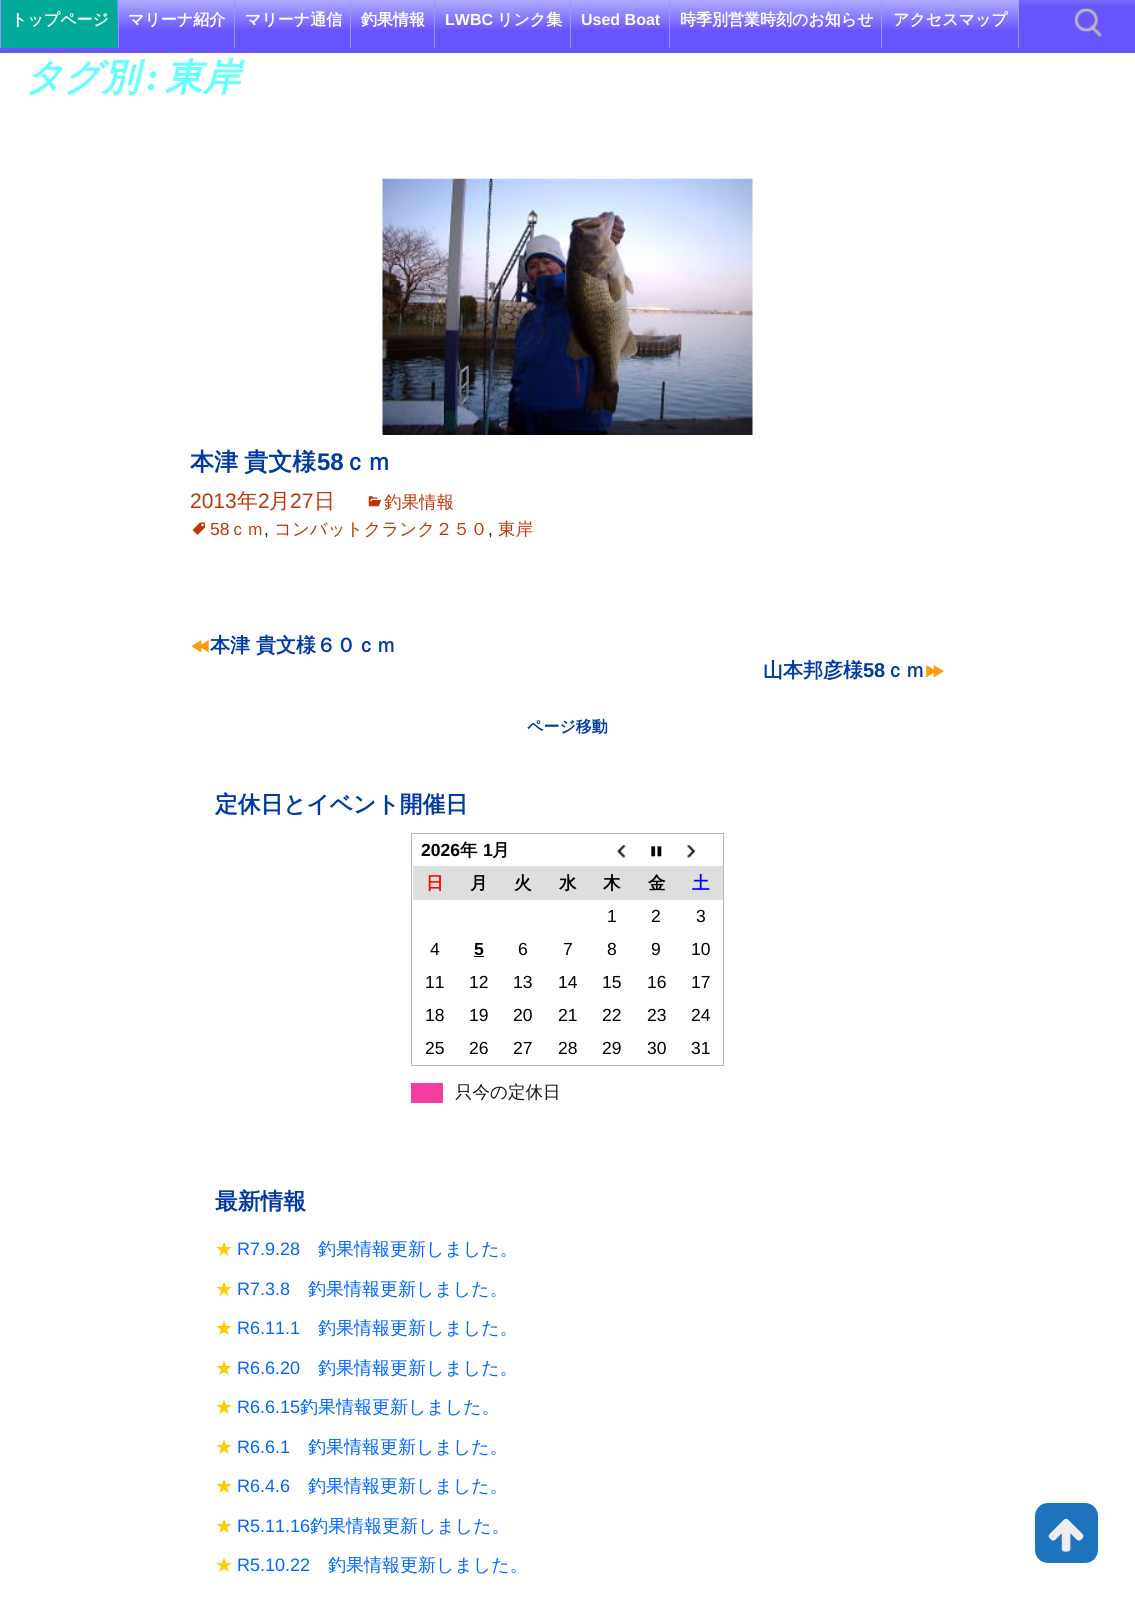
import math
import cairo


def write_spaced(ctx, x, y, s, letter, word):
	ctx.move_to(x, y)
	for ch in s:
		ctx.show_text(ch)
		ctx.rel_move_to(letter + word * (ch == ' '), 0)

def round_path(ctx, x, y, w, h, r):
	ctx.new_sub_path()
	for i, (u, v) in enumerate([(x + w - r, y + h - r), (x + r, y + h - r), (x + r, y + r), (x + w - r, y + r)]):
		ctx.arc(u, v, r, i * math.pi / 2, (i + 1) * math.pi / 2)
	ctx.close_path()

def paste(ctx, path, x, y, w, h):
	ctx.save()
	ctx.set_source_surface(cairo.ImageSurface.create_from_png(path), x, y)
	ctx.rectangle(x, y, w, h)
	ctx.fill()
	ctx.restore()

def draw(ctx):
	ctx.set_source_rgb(1, 1, 1)
	ctx.paint()
	ctx.set_source_rgb(0.404, 0.329, 0.992)
	ctx.rectangle(0, 6, 1135, 47)
	ctx.fill()
	paste(ctx, 'media/1.png', 1019, 0, 116, 6)
	ctx.set_source_rgb(0.008, 0.667, 0.6)
	ctx.rectangle(1, 0, 117, 48)
	ctx.fill()
	ctx.set_source_rgb(0.612, 0.584, 0.996)
	ctx.rectangle(0, 0, 1, 48)
	ctx.fill()
	ctx.select_font_face('WenQuanYi Zen Hei', cairo.FONT_SLANT_NORMAL, cairo.FONT_WEIGHT_BOLD)
	ctx.set_font_size(16)
	ctx.set_source_rgb(1, 1, 1)
	ctx.move_to(11, 25)
	ctx.show_text('トップページ')
	paste(ctx, 'media/2.png', 117, 0, 117, 48)
	ctx.set_source_rgb(0.612, 0.584, 0.996)
	ctx.rectangle(118, 0, 1, 48)
	ctx.fill()
	ctx.set_source_rgb(1, 1, 1)
	ctx.move_to(128, 25)
	ctx.show_text('マリーナ紹介')
	paste(ctx, 'media/3.png', 235, 0, 115, 30)
	ctx.set_source_rgb(0.612, 0.584, 0.996)
	ctx.rectangle(234, 0, 1, 48)
	ctx.fill()
	ctx.set_source_rgb(1, 1, 1)
	ctx.move_to(245, 25)
	ctx.show_text('マリーナ通信')
	paste(ctx, 'media/4.png', 351, 0, 83, 30)
	ctx.set_source_rgb(0.612, 0.584, 0.996)
	ctx.rectangle(350, 0, 1, 48)
	ctx.fill()
	ctx.set_source_rgb(1, 1, 1)
	ctx.move_to(361, 25)
	ctx.show_text('釣果情報')
	paste(ctx, 'media/5.png', 435, 0, 135, 30)
	ctx.set_source_rgb(0.612, 0.584, 0.996)
	ctx.rectangle(434, 0, 1, 48)
	ctx.fill()
	ctx.select_font_face('Liberation Sans', cairo.FONT_SLANT_NORMAL, cairo.FONT_WEIGHT_BOLD)
	ctx.set_source_rgb(1, 1, 1)
	ctx.move_to(445, 25)
	ctx.show_text('LWBC')
	ctx.select_font_face('WenQuanYi Zen Hei', cairo.FONT_SLANT_NORMAL, cairo.FONT_WEIGHT_BOLD)
	ctx.move_to(497, 25)
	ctx.show_text('リンク集')
	paste(ctx, 'media/6.png', 571, 0, 98, 30)
	ctx.set_source_rgb(0.612, 0.584, 0.996)
	ctx.rectangle(570, 0, 1, 48)
	ctx.fill()
	ctx.select_font_face('Liberation Sans', cairo.FONT_SLANT_NORMAL, cairo.FONT_WEIGHT_BOLD)
	ctx.set_source_rgb(1, 1, 1)
	ctx.move_to(581, 25)
	ctx.show_text('Used Boat')
	paste(ctx, 'media/7.png', 670, 0, 211, 30)
	ctx.set_source_rgb(0.612, 0.584, 0.996)
	ctx.rectangle(669, 0, 1, 48)
	ctx.fill()
	ctx.select_font_face('WenQuanYi Zen Hei', cairo.FONT_SLANT_NORMAL, cairo.FONT_WEIGHT_BOLD)
	ctx.set_source_rgb(1, 1, 1)
	ctx.move_to(680, 25)
	ctx.show_text('時季別営業時刻のお知らせ')
	paste(ctx, 'media/8.png', 882, 0, 136, 30)
	ctx.set_source_rgb(0.612, 0.584, 0.996)
	ctx.rectangle(1018, 0, 1, 48)
	ctx.fill()
	ctx.rectangle(881, 0, 1, 48)
	ctx.fill()
	ctx.set_source_rgb(1, 1, 1)
	ctx.move_to(893, 25)
	ctx.show_text('アクセスマップ')
	paste(ctx, 'media/9.png', 1074, 8, 28, 29)
	ctx.select_font_face('WenQuanYi Zen Hei', cairo.FONT_SLANT_ITALIC, cairo.FONT_WEIGHT_BOLD)
	ctx.set_font_size(37.5)
	ctx.set_source_rgb(0.396, 1, 0.988)
	ctx.move_to(25, 90)
	ctx.show_text('タグ別')
	ctx.select_font_face('Source Sans Pro', cairo.FONT_SLANT_ITALIC, cairo.FONT_WEIGHT_BOLD)
	ctx.move_to(147, 90)
	ctx.show_text(':')
	ctx.select_font_face('WenQuanYi Zen Hei', cairo.FONT_SLANT_ITALIC, cairo.FONT_WEIGHT_BOLD)
	ctx.move_to(165, 90)
	ctx.show_text('東岸')
	paste(ctx, 'media/10.png', 382, 178, 371, 257)
	ctx.select_font_face('WenQuanYi Zen Hei', cairo.FONT_SLANT_NORMAL, cairo.FONT_WEIGHT_BOLD)
	ctx.set_font_size(24)
	ctx.set_source_rgb(0, 0.227, 0.631)
	write_spaced(ctx, 190, 470, '本津 貴文様', 0, -1)
	ctx.select_font_face('Liberation Sans', cairo.FONT_SLANT_NORMAL, cairo.FONT_WEIGHT_BOLD)
	ctx.move_to(317, 470)
	ctx.show_text('58')
	ctx.select_font_face('WenQuanYi Zen Hei', cairo.FONT_SLANT_NORMAL, cairo.FONT_WEIGHT_BOLD)
	ctx.move_to(343, 470)
	ctx.show_text('ｃｍ')
	ctx.select_font_face('Liberation Sans')
	ctx.set_font_size(21)
	ctx.set_source_rgb(0.737, 0.212, 0.039)
	ctx.move_to(190, 508)
	ctx.show_text('2013')
	ctx.select_font_face('WenQuanYi Zen Hei Medium')
	ctx.move_to(237, 508)
	ctx.show_text('年')
	ctx.select_font_face('Liberation Sans')
	ctx.move_to(258, 508)
	ctx.show_text('2')
	ctx.select_font_face('WenQuanYi Zen Hei Medium')
	ctx.move_to(269, 508)
	ctx.show_text('月')
	ctx.select_font_face('Liberation Sans')
	ctx.move_to(290, 508)
	ctx.show_text('27')
	ctx.select_font_face('WenQuanYi Zen Hei Medium')
	ctx.move_to(314, 508)
	ctx.show_text('日')
	paste(ctx, 'media/11.png', 368, 496, 14, 11)
	ctx.set_font_size(17.5)
	ctx.move_to(384, 508)
	ctx.show_text('釣果情報')
	paste(ctx, 'media/12.png', 192, 522, 13, 13)
	ctx.select_font_face('Liberation Sans')
	ctx.move_to(210, 535)
	ctx.show_text('58')
	ctx.select_font_face('WenQuanYi Zen Hei Medium')
	ctx.move_to(229, 535)
	ctx.show_text('ｃｍ')
	ctx.select_font_face('Liberation Sans')
	ctx.set_source_rgb(0.078, 0.078, 0.071)
	ctx.move_to(264, 535)
	ctx.show_text(',')
	ctx.select_font_face('WenQuanYi Zen Hei Medium')
	ctx.set_source_rgb(0.737, 0.212, 0.039)
	ctx.move_to(274, 535)
	ctx.show_text('コンバットクランク２５０')
	ctx.select_font_face('Liberation Sans')
	ctx.set_source_rgb(0.078, 0.078, 0.071)
	ctx.move_to(488, 535)
	ctx.show_text(',')
	ctx.select_font_face('WenQuanYi Zen Hei Medium')
	ctx.set_source_rgb(0.737, 0.212, 0.039)
	ctx.move_to(498, 535)
	ctx.show_text('東岸')
	paste(ctx, 'media/13.png', 191, 640, 18, 13)
	ctx.select_font_face('WenQuanYi Zen Hei', cairo.FONT_SLANT_NORMAL, cairo.FONT_WEIGHT_BOLD)
	ctx.set_font_size(20)
	ctx.set_source_rgb(0, 0.227, 0.631)
	ctx.move_to(210, 652)
	ctx.show_text('本津 貴文様６０ｃｍ')
	ctx.move_to(763, 677)
	ctx.show_text('山本邦彦様')
	ctx.select_font_face('Liberation Sans', cairo.FONT_SLANT_NORMAL, cairo.FONT_WEIGHT_BOLD)
	ctx.move_to(863, 677)
	ctx.show_text('58')
	ctx.select_font_face('WenQuanYi Zen Hei', cairo.FONT_SLANT_NORMAL, cairo.FONT_WEIGHT_BOLD)
	ctx.move_to(885, 677)
	ctx.show_text('ｃｍ')
	paste(ctx, 'media/14.png', 926, 665, 18, 13)
	ctx.set_font_size(16)
	ctx.move_to(527, 732)
	ctx.show_text('ページ移動')
	ctx.set_font_size(22.75)
	ctx.move_to(215, 812)
	ctx.show_text('定休日とイベント開催日')
	ctx.set_source_rgb(0.71, 0.71, 0.714)
	ctx.rectangle(411, 833, 313, 1)
	ctx.rectangle(723, 833, 1, 233)
	ctx.rectangle(411, 1065, 313, 1)
	ctx.rectangle(411, 833, 1, 233)
	ctx.fill()
	ctx.select_font_face('Liberation Sans', cairo.FONT_SLANT_NORMAL, cairo.FONT_WEIGHT_BOLD)
	ctx.set_font_size(17.5)
	ctx.set_source_rgb(0, 0, 0)
	ctx.move_to(421, 856)
	ctx.show_text('2026')
	ctx.select_font_face('WenQuanYi Zen Hei', cairo.FONT_SLANT_NORMAL, cairo.FONT_WEIGHT_BOLD)
	ctx.move_to(460, 856)
	ctx.show_text('年')
	ctx.select_font_face('Liberation Sans', cairo.FONT_SLANT_NORMAL, cairo.FONT_WEIGHT_BOLD)
	ctx.move_to(483, 856)
	ctx.show_text('1')
	ctx.select_font_face('WenQuanYi Zen Hei', cairo.FONT_SLANT_NORMAL, cairo.FONT_WEIGHT_BOLD)
	ctx.move_to(492, 856)
	ctx.show_text('月')
	paste(ctx, 'media/15.png', 617, 844, 9, 14)
	paste(ctx, 'media/16.png', 651, 846, 11, 11)
	paste(ctx, 'media/17.png', 687, 844, 9, 14)
	ctx.set_source_rgb(0.871, 0.871, 0.871)
	ctx.rectangle(413, 866, 310, 34)
	ctx.fill()
	ctx.set_source_rgb(1, 0, 0)
	ctx.move_to(426, 889)
	ctx.show_text('日')
	ctx.set_source_rgb(0, 0, 0)
	for x, y, s in [
		(470, 889, '月'),
		(514, 889, '火'),
		(559, 889, '水'),
		(603, 889, '木'),
		(648, 889, '金'),
	]:
		ctx.move_to(x, y)
		ctx.show_text(s)
	ctx.set_source_rgb(0, 0, 1)
	ctx.move_to(692, 889)
	ctx.show_text('土')
	ctx.select_font_face('Liberation Sans')
	ctx.set_source_rgb(0, 0, 0)
	for x, y, s in [
		(607, 922, '1'),
		(651, 922, '2'),
		(696, 922, '3'),
		(430, 955, '4'),
	]:
		ctx.move_to(x, y)
		ctx.show_text(s)
	ctx.select_font_face('Liberation Sans', cairo.FONT_SLANT_NORMAL, cairo.FONT_WEIGHT_BOLD)
	ctx.move_to(474, 955)
	ctx.show_text('5')
	ctx.rectangle(474, 956, 10, 1)
	ctx.fill()
	ctx.select_font_face('Liberation Sans')
	for x, y, s in [
		(518, 955, '6'),
		(563, 955, '7'),
		(607, 955, '8'),
		(651, 955, '9'),
		(691, 955, '10'),
		(425, 988, '11'),
		(469, 988, '12'),
		(513, 988, '13'),
		(558, 988, '14'),
		(602, 988, '15'),
		(647, 988, '16'),
		(691, 988, '17'),
		(425, 1021, '18'),
		(469, 1021, '19'),
		(513, 1021, '20'),
		(558, 1021, '21'),
		(602, 1021, '22'),
		(647, 1021, '23'),
		(691, 1021, '24'),
		(425, 1054, '25'),
		(469, 1054, '26'),
		(513, 1054, '27'),
		(558, 1054, '28'),
		(602, 1054, '29'),
		(647, 1054, '30'),
		(691, 1054, '31'),
	]:
		ctx.move_to(x, y)
		ctx.show_text(s)
	ctx.set_source_rgb(0.965, 0.235, 0.624)
	ctx.rectangle(411, 1083, 32, 20)
	ctx.fill()
	ctx.select_font_face('WenQuanYi Zen Hei Medium')
	ctx.set_source_rgb(0.078, 0.078, 0.071)
	ctx.move_to(455, 1098)
	ctx.show_text('只今の定休日')
	ctx.select_font_face('WenQuanYi Zen Hei', cairo.FONT_SLANT_NORMAL, cairo.FONT_WEIGHT_BOLD)
	ctx.set_font_size(22.75)
	ctx.set_source_rgb(0, 0.227, 0.631)
	ctx.move_to(215, 1209)
	ctx.show_text('最新情報')
	ctx.select_font_face('WenQuanYi Zen Hei Medium')
	ctx.set_font_size(18)
	ctx.set_source_rgb(1, 0.8, 0)
	ctx.move_to(215, 1255)
	ctx.show_text('★')
	ctx.select_font_face('Liberation Sans')
	ctx.set_source_rgb(0, 0.4, 1)
	ctx.move_to(237, 1255)
	ctx.show_text('R7.9.28')
	ctx.select_font_face('WenQuanYi Zen Hei Medium')
	ctx.move_to(318, 1255)
	ctx.show_text('釣果情報更新しました。')
	ctx.set_source_rgb(1, 0.8, 0)
	ctx.move_to(215, 1295)
	ctx.show_text('★')
	ctx.select_font_face('Liberation Sans')
	ctx.set_source_rgb(0, 0.4, 1)
	ctx.move_to(237, 1295)
	ctx.show_text('R7.3.8')
	ctx.select_font_face('WenQuanYi Zen Hei Medium')
	ctx.move_to(308, 1295)
	ctx.show_text('釣果情報更新しました。')
	ctx.set_source_rgb(1, 0.8, 0)
	ctx.move_to(215, 1334)
	ctx.show_text('★')
	ctx.select_font_face('Liberation Sans')
	ctx.set_source_rgb(0, 0.4, 1)
	ctx.move_to(237, 1334)
	ctx.show_text('R6.11.1')
	ctx.select_font_face('WenQuanYi Zen Hei Medium')
	ctx.move_to(318, 1334)
	ctx.show_text('釣果情報更新しました。')
	ctx.set_source_rgb(1, 0.8, 0)
	ctx.move_to(215, 1374)
	ctx.show_text('★')
	ctx.select_font_face('Liberation Sans')
	ctx.set_source_rgb(0, 0.4, 1)
	ctx.move_to(237, 1374)
	ctx.show_text('R6.6.20')
	ctx.select_font_face('WenQuanYi Zen Hei Medium')
	ctx.move_to(318, 1374)
	ctx.show_text('釣果情報更新しました。')
	ctx.set_source_rgb(1, 0.8, 0)
	ctx.move_to(215, 1413)
	ctx.show_text('★')
	ctx.select_font_face('Liberation Sans')
	ctx.set_source_rgb(0, 0.4, 1)
	ctx.move_to(237, 1413)
	ctx.show_text('R6.6.15')
	ctx.select_font_face('WenQuanYi Zen Hei Medium')
	ctx.move_to(300, 1413)
	ctx.show_text('釣果情報更新しました。')
	ctx.set_source_rgb(1, 0.8, 0)
	ctx.move_to(215, 1453)
	ctx.show_text('★')
	ctx.select_font_face('Liberation Sans')
	ctx.set_source_rgb(0, 0.4, 1)
	ctx.move_to(237, 1453)
	ctx.show_text('R6.6.1')
	ctx.select_font_face('WenQuanYi Zen Hei Medium')
	ctx.move_to(308, 1453)
	ctx.show_text('釣果情報更新しました。')
	ctx.set_source_rgb(1, 0.8, 0)
	ctx.move_to(215, 1492)
	ctx.show_text('★')
	ctx.select_font_face('Liberation Sans')
	ctx.set_source_rgb(0, 0.4, 1)
	ctx.move_to(237, 1492)
	ctx.show_text('R6.4.6')
	ctx.select_font_face('WenQuanYi Zen Hei Medium')
	ctx.move_to(308, 1492)
	ctx.show_text('釣果情報更新しました。')
	ctx.set_source_rgb(1, 0.8, 0)
	ctx.move_to(215, 1532)
	ctx.show_text('★')
	ctx.select_font_face('Liberation Sans')
	ctx.set_source_rgb(0, 0.4, 1)
	ctx.move_to(237, 1532)
	ctx.show_text('R5.11.16')
	ctx.select_font_face('WenQuanYi Zen Hei Medium')
	ctx.move_to(310, 1532)
	ctx.show_text('釣果情報更新しました。')
	ctx.set_source_rgb(1, 0.8, 0)
	ctx.move_to(215, 1571)
	ctx.show_text('★')
	ctx.select_font_face('Liberation Sans')
	ctx.set_source_rgb(0, 0.4, 1)
	ctx.move_to(237, 1571)
	ctx.show_text('R5.10.22')
	ctx.select_font_face('WenQuanYi Zen Hei Medium')
	ctx.move_to(328, 1571)
	ctx.show_text('釣果情報更新しました。')
	ctx.set_source_rgb(0.118, 0.451, 0.745)
	round_path(ctx, 1035, 1503, 63, 60, 13)
	ctx.fill()
	paste(ctx, 'media/18.png', 1048, 1518, 36, 34)


surface = cairo.ImageSurface(cairo.FORMAT_RGB24, 1135, 1599)
ctx = cairo.Context(surface)
options = cairo.FontOptions()
options.set_hint_metrics(cairo.HINT_METRICS_OFF)
options.set_hint_style(cairo.HINT_STYLE_NONE)
ctx.set_font_options(options)
ctx.set_miter_limit(4)
draw(ctx)
surface.write_to_png('image.png')
